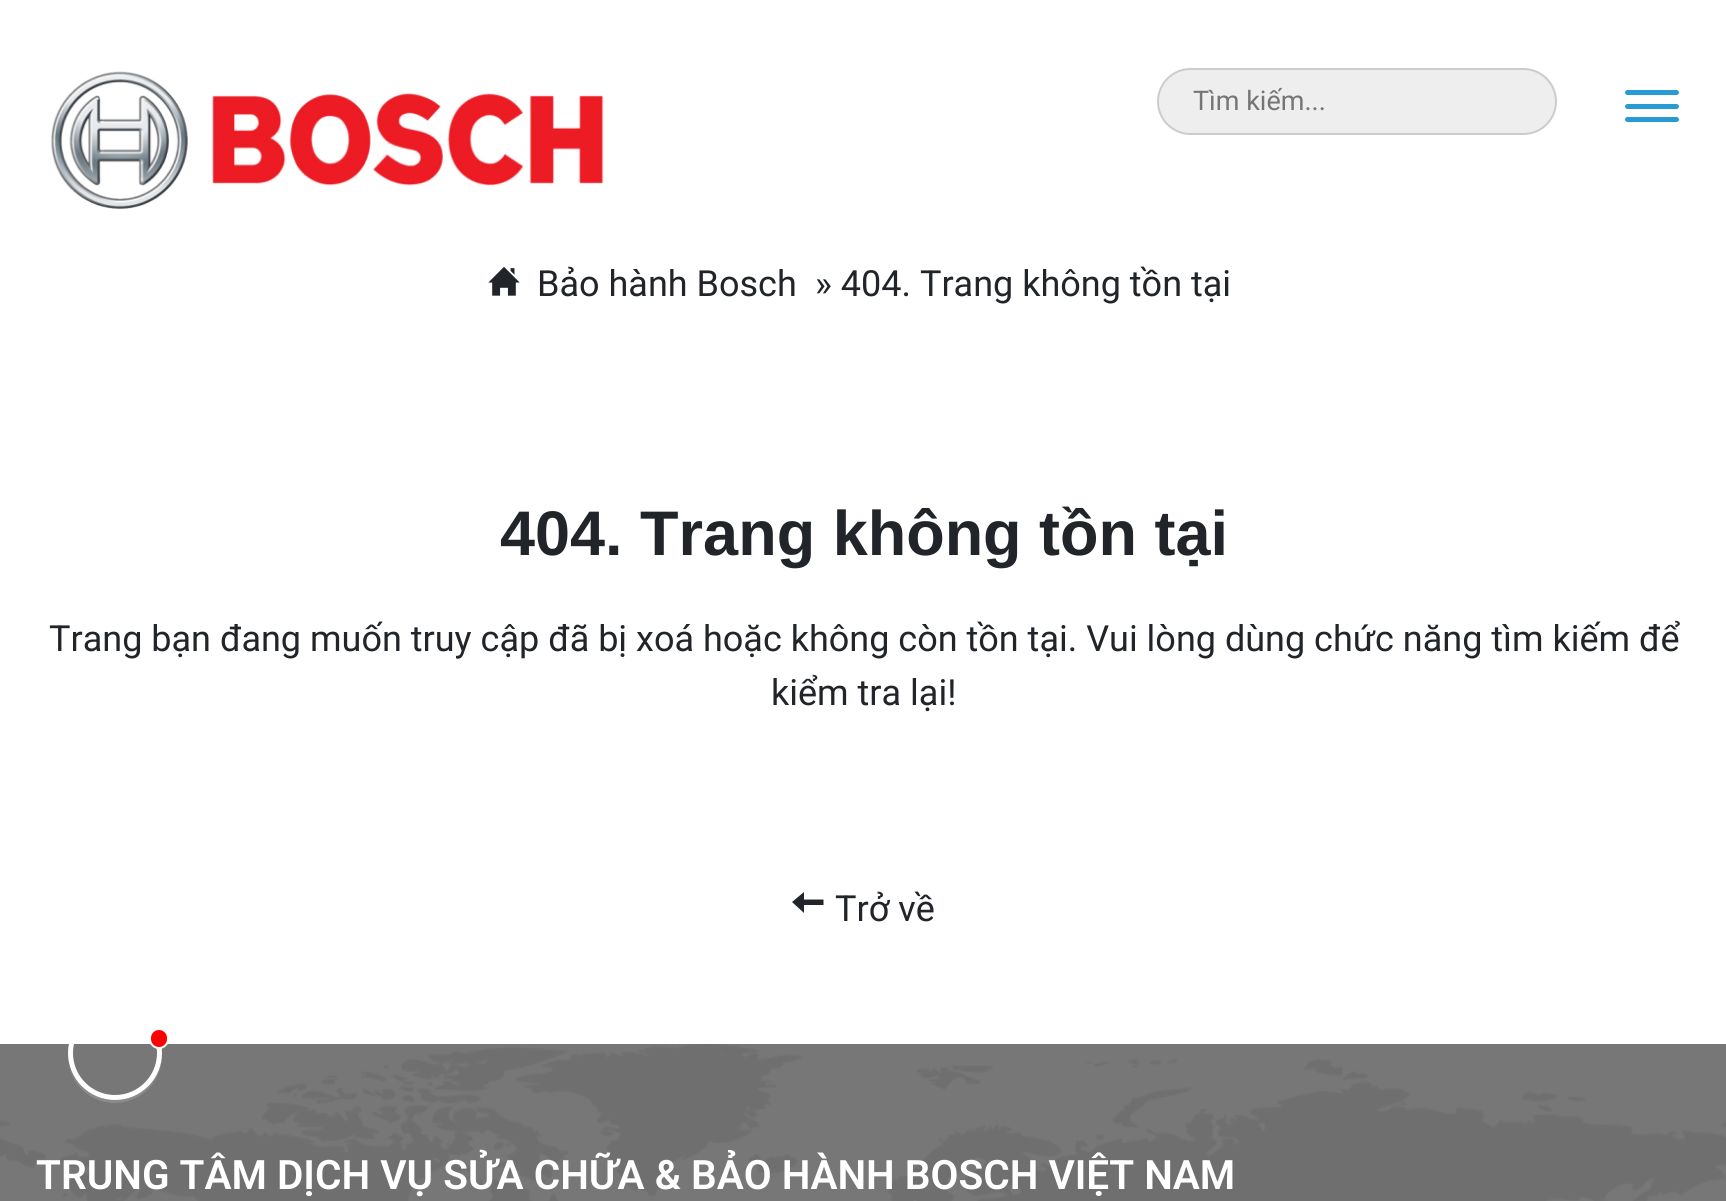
import math
import cairo


def round_path(ctx, x, y, w, h, r):
	ctx.new_sub_path()
	for i, (u, v) in enumerate([(x + w - r, y + h - r), (x + r, y + h - r), (x + r, y + r), (x + w - r, y + r)]):
		ctx.arc(u, v, r, i * math.pi / 2, (i + 1) * math.pi / 2)
	ctx.close_path()

def paste(ctx, path, x, y, w, h):
	ctx.save()
	ctx.set_source_surface(cairo.ImageSurface.create_from_png(path), x, y)
	ctx.rectangle(x, y, w, h)
	ctx.fill()
	ctx.restore()

def draw(ctx):
	ctx.set_source_rgb(1, 1, 1)
	ctx.paint()
	paste(ctx, 'media/1.png', 50, 71, 554, 139)
	ctx.set_source_rgb(0.933, 0.933, 0.933)
	round_path(ctx, 1158, 69, 398, 65, 32.5)
	ctx.fill_preserve()
	ctx.set_source_rgb(0.8, 0.8, 0.8)
	ctx.stroke()
	ctx.select_font_face('Roboto')
	ctx.set_font_size(27)
	ctx.set_source_rgb(0.459, 0.459, 0.459)
	ctx.move_to(1193, 110)
	ctx.show_text('Tìm kiếm...')
	ctx.set_source_rgb(0.161, 0.608, 0.827)
	round_path(ctx, 1625, 90, 54, 5, 2.5)
	ctx.fill()
	round_path(ctx, 1625, 104, 54, 5, 2.5)
	ctx.fill()
	round_path(ctx, 1625, 117, 54, 5, 2.5)
	ctx.fill()
	paste(ctx, 'media/2.png', 488, 267, 32, 29)
	ctx.set_font_size(36)
	ctx.set_source_rgb(0.129, 0.145, 0.161)
	ctx.move_to(537, 296)
	ctx.show_text('Bảo hành Bosch')
	ctx.move_to(815, 296)
	ctx.show_text('» 404. Trang không tồn tại')
	ctx.select_font_face('Liberation Sans', cairo.FONT_SLANT_NORMAL, cairo.FONT_WEIGHT_BOLD)
	ctx.set_font_size(63)
	ctx.move_to(500, 555)
	ctx.show_text('404. Trang không tồn tại')
	ctx.select_font_face('Roboto')
	ctx.set_font_size(36)
	ctx.move_to(49, 651)
	ctx.show_text('Trang bạn đang muốn truy cập đã bị xoá hoặc không còn tồn tại. Vui lòng dùng chức năng tìm kiếm để')
	ctx.move_to(771, 705)
	ctx.show_text('kiểm tra lại!')
	ctx.new_path()
	ctx.move_to(792, 902)
	ctx.line_to(804, 892)
	ctx.line_to(804, 899.5)
	ctx.line_to(823.5, 899.5)
	ctx.line_to(823.5, 905)
	ctx.line_to(804, 905)
	ctx.line_to(804, 913)
	ctx.close_path()
	ctx.fill()
	ctx.move_to(835, 921)
	ctx.show_text('Trở về')
	ctx.set_source_rgb(0.467, 0.467, 0.467)
	ctx.rectangle(0, 1044, 1726, 157)
	ctx.fill()
	paste(ctx, 'media/3.png', 0, 1044, 1726, 157)
	ctx.set_source_rgb(0.545, 0.545, 0.545)
	ctx.new_path()
	ctx.move_to(68, 1062)
	ctx.curve_to(70, 1071, 73, 1079, 78, 1085)
	ctx.curve_to(107, 1121, 163, 1099, 162, 1054)
	ctx.curve_to(161, 1080, 141, 1100, 115, 1100)
	ctx.curve_to(92, 1100, 73, 1084, 68, 1062)
	ctx.close_path()
	ctx.fill()
	ctx.arc(115, 1053, 44.5, 0, 2 * math.pi)
	ctx.set_source_rgb(1, 1, 1)
	ctx.set_line_width(5)
	ctx.stroke()
	ctx.set_source_rgb(1, 0, 0)
	round_path(ctx, 150, 1029, 18, 19, 9)
	ctx.fill_preserve()
	ctx.set_source_rgb(1, 1, 1)
	ctx.set_line_width(2)
	ctx.stroke()
	ctx.select_font_face('Roboto SemiBold')
	ctx.set_font_size(40.5)
	ctx.move_to(36, 1189)
	ctx.show_text('TRUNG TÂM DỊCH VỤ SỬA CHỮA & BẢO HÀNH BOSCH VIỆT NAM')


surface = cairo.ImageSurface(cairo.FORMAT_RGB24, 1726, 1201)
ctx = cairo.Context(surface)
options = cairo.FontOptions()
options.set_hint_metrics(cairo.HINT_METRICS_OFF)
options.set_hint_style(cairo.HINT_STYLE_NONE)
ctx.set_font_options(options)
ctx.set_miter_limit(4)
draw(ctx)
surface.write_to_png('image.png')
